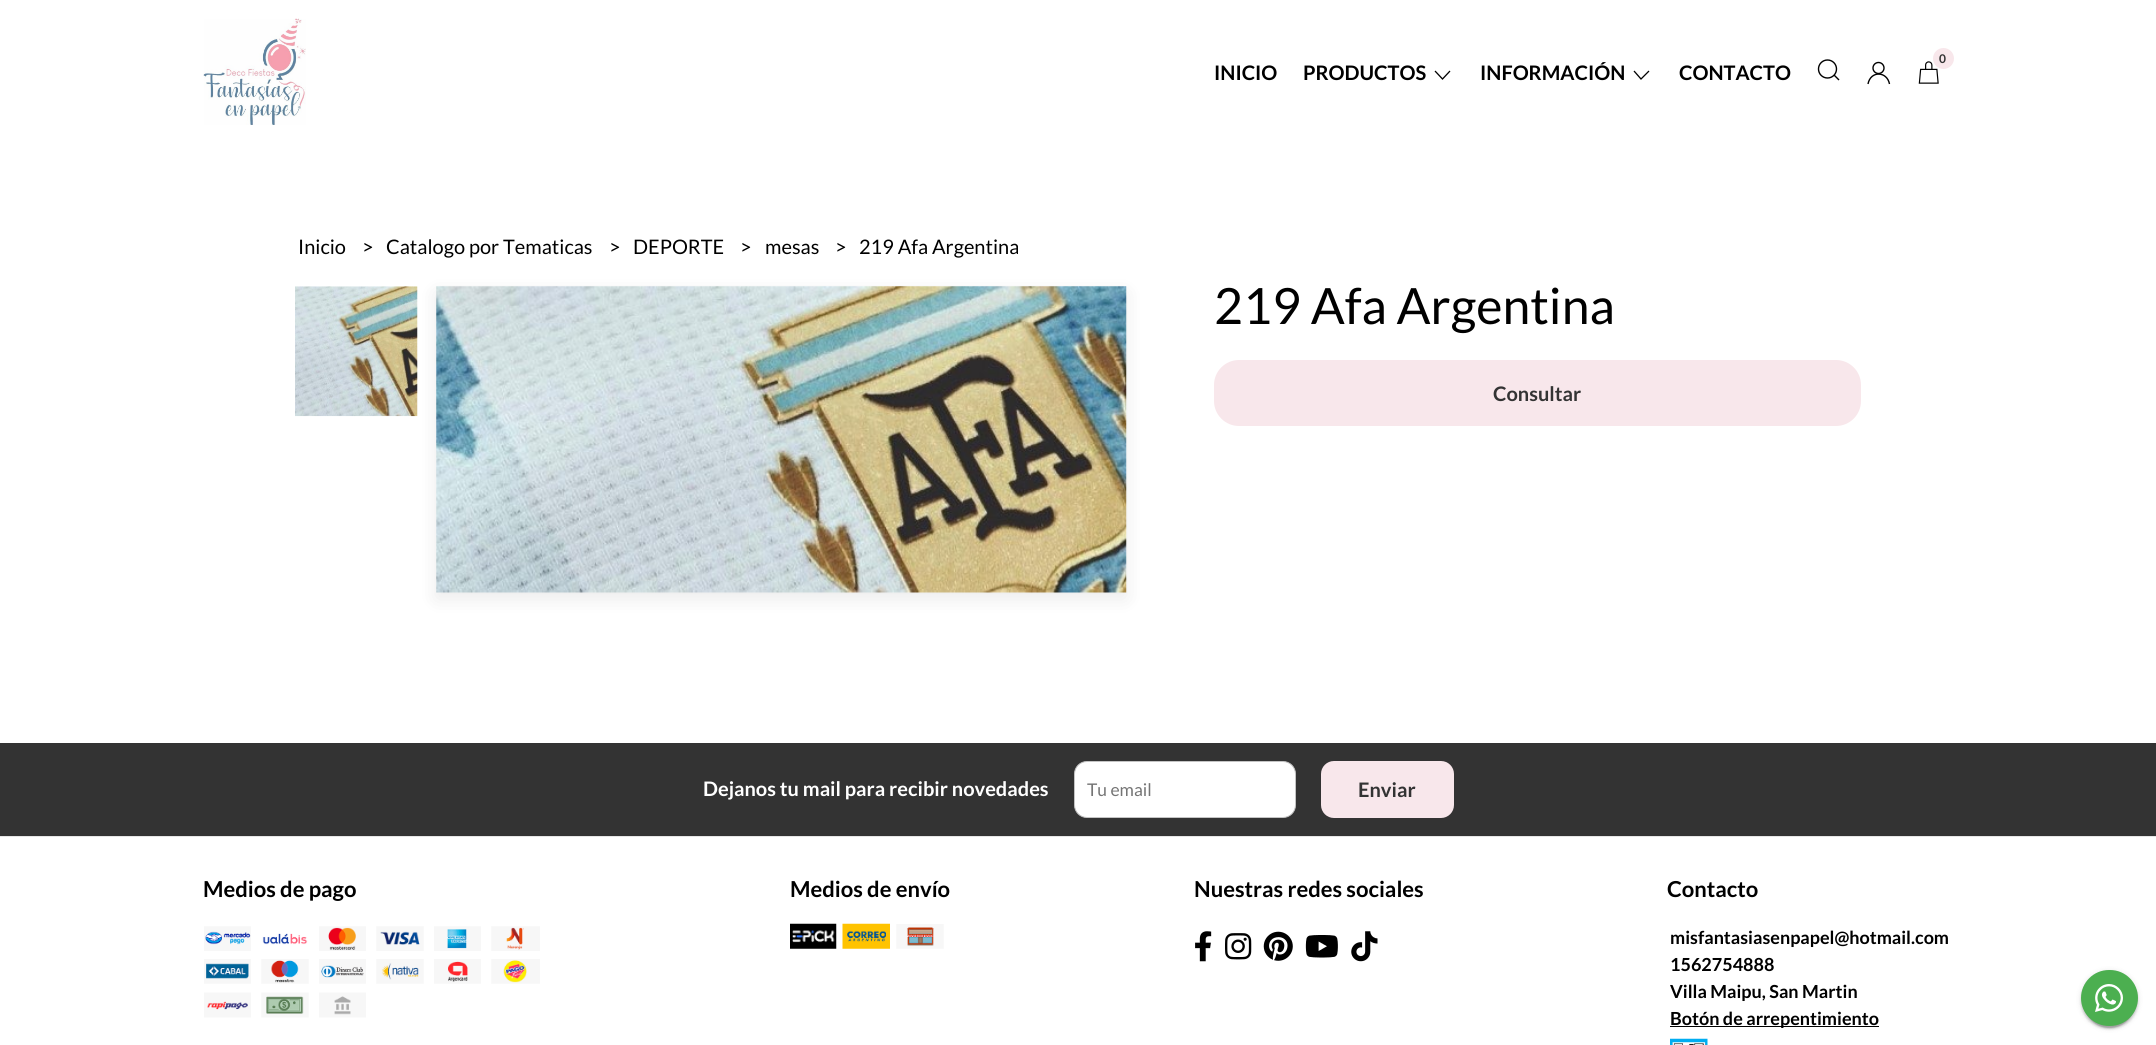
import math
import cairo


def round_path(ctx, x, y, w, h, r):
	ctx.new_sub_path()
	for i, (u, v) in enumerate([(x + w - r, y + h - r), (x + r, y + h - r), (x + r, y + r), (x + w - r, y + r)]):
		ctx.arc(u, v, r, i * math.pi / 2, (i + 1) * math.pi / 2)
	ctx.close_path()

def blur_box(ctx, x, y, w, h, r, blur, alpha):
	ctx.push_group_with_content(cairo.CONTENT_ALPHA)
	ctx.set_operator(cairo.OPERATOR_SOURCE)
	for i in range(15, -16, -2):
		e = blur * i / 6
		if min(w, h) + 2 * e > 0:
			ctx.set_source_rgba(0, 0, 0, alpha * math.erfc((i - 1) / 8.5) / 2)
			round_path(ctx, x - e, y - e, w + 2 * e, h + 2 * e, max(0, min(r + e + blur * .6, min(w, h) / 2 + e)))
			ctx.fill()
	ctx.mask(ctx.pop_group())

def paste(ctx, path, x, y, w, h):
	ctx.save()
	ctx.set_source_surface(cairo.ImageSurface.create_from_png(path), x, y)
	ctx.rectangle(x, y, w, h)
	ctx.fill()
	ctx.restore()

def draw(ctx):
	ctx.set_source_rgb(1, 1, 1)
	ctx.paint()
	paste(ctx, 'media/1.png', 203, 18, 103, 107)
	ctx.select_font_face('Lato', cairo.FONT_SLANT_NORMAL, cairo.FONT_WEIGHT_BOLD)
	ctx.set_font_size(20)
	ctx.set_source_rgb(0, 0, 0)
	ctx.move_to(1214, 80)
	ctx.show_text('INICIO')
	ctx.move_to(1303, 80)
	ctx.show_text('PRODUCTOS')
	ctx.new_path()
	ctx.move_to(1450, 71)
	ctx.line_to(1442.5, 79)
	ctx.line_to(1435, 71)
	ctx.set_line_width(1.3)
	ctx.stroke()
	ctx.move_to(1480, 80)
	ctx.show_text('INFORMACIÓN')
	ctx.new_path()
	ctx.move_to(1649, 71)
	ctx.line_to(1641, 79)
	ctx.line_to(1634, 71)
	ctx.stroke()
	ctx.move_to(1679, 80)
	ctx.show_text('CONTACTO')
	ctx.new_path()
	ctx.arc(1827.5, 69, 9, 0, 2 * math.pi)
	ctx.set_line_width(1.4)
	ctx.stroke()
	ctx.new_path()
	ctx.move_to(1834, 75)
	ctx.line_to(1839, 80)
	ctx.close_path()
	ctx.stroke()
	ctx.arc(1878.5, 68, 5.5, 0, 2 * math.pi)
	ctx.stroke()
	ctx.new_path()
	ctx.move_to(1868, 84)
	ctx.curve_to(1870.5, 70.5, 1887, 71, 1889.5, 84)
	ctx.stroke()
	paste(ctx, 'media/2.png', 1918, 61, 21, 23)
	ctx.set_source_rgb(0.969, 0.906, 0.918)
	ctx.arc(1943.5, 58.5, 10.5, 0, 2 * math.pi)
	ctx.fill()
	ctx.set_font_size(12)
	ctx.set_source_rgb(0.2, 0.2, 0.2)
	ctx.move_to(1939, 63)
	ctx.show_text('0')
	ctx.select_font_face('Lato')
	ctx.set_font_size(20)
	ctx.set_source_rgb(0, 0, 0)
	for x, y, s in [
		(298, 254, 'Inicio'),
		(362, 254, '>'),
		(386, 254, 'Catalogo por Tematicas'),
		(609, 254, '>'),
		(633, 254, 'DEPORTE'),
		(740, 254, '>'),
		(765, 254, 'mesas'),
		(835, 254, '>'),
		(859, 254, '219 Afa Argentina'),
	]:
		ctx.move_to(x, y)
		ctx.show_text(s)
	ctx.set_source_rgb(0, 0, 0)
	blur_box(ctx, 436, 293, 690, 306, 0, 9.5, 0.08)
	paste(ctx, 'media/3.png', 295, 286, 123, 131)
	paste(ctx, 'media/4.png', 436, 286, 691, 307)
	ctx.set_font_size(50)
	ctx.set_source_rgb(0, 0, 0)
	ctx.move_to(1214, 324)
	ctx.show_text('219 Afa Argentina')
	ctx.set_source_rgb(0.969, 0.906, 0.918)
	round_path(ctx, 1214, 360, 647, 66, 25)
	ctx.fill()
	ctx.select_font_face('Lato', cairo.FONT_SLANT_NORMAL, cairo.FONT_WEIGHT_BOLD)
	ctx.set_font_size(20)
	ctx.set_source_rgb(0.2, 0.2, 0.2)
	ctx.move_to(1493, 401)
	ctx.show_text('Consultar')
	ctx.rectangle(0, 743, 2156, 93)
	ctx.fill()
	ctx.set_source_rgb(1, 1, 1)
	ctx.move_to(703, 796)
	ctx.show_text('Dejanos tu mail para recibir novedades')
	round_path(ctx, 1074.5, 761.5, 221, 56, 12.5)
	ctx.fill_preserve()
	ctx.set_source_rgb(0.769, 0.769, 0.769)
	ctx.set_line_width(1)
	ctx.stroke()
	ctx.select_font_face('Lato')
	ctx.set_font_size(17.5)
	ctx.set_source_rgb(0.459, 0.459, 0.459)
	ctx.move_to(1087, 796)
	ctx.show_text('Tu email')
	ctx.set_source_rgb(0.969, 0.906, 0.918)
	round_path(ctx, 1321, 761, 133, 57, 13)
	ctx.fill()
	ctx.select_font_face('Lato', cairo.FONT_SLANT_NORMAL, cairo.FONT_WEIGHT_BOLD)
	ctx.set_font_size(20)
	ctx.set_source_rgb(0.2, 0.2, 0.2)
	ctx.move_to(1358, 797)
	ctx.show_text('Enviar')
	ctx.set_source_rgb(0.902, 0.902, 0.902)
	ctx.rectangle(0, 836, 2156, 1)
	ctx.fill()
	ctx.set_font_size(22)
	ctx.set_source_rgb(0, 0, 0)
	ctx.move_to(203, 897)
	ctx.show_text('Medios de pago')
	paste(ctx, 'media/5.png', 204, 926, 47, 25)
	paste(ctx, 'media/6.png', 262, 933, 46, 12)
	paste(ctx, 'media/7.png', 319, 926, 47, 25)
	paste(ctx, 'media/8.png', 376, 926, 48, 25)
	paste(ctx, 'media/9.png', 434, 926, 47, 25)
	paste(ctx, 'media/10.png', 491, 926, 49, 25)
	paste(ctx, 'media/11.png', 204, 959, 47, 25)
	paste(ctx, 'media/12.png', 261, 959, 48, 25)
	paste(ctx, 'media/13.png', 319, 959, 47, 25)
	paste(ctx, 'media/14.png', 376, 959, 48, 25)
	paste(ctx, 'media/15.png', 434, 959, 47, 25)
	paste(ctx, 'media/16.png', 491, 959, 49, 25)
	paste(ctx, 'media/17.png', 204, 992, 47, 26)
	paste(ctx, 'media/18.png', 261, 992, 48, 26)
	paste(ctx, 'media/19.png', 319, 992, 47, 26)
	ctx.move_to(790, 897)
	ctx.show_text('Medios de envío')
	paste(ctx, 'media/20.png', 790, 923, 47, 26)
	paste(ctx, 'media/21.png', 842, 923, 48, 26)
	paste(ctx, 'media/22.png', 896, 924, 48, 25)
	ctx.move_to(1194, 897)
	ctx.show_text('Nuestras redes sociales')
	paste(ctx, 'media/23.png', 1195, 931, 17, 31)
	paste(ctx, 'media/24.png', 1225, 933, 27, 27)
	paste(ctx, 'media/25.png', 1263, 931, 30, 30)
	paste(ctx, 'media/26.png', 1305, 935, 33, 23)
	paste(ctx, 'media/27.png', 1351, 931, 27, 31)
	ctx.move_to(1667, 897)
	ctx.show_text('Contacto')
	ctx.set_font_size(18)
	for x, y, s in [
		(1670, 944, 'misfantasiasenpapel@hotmail.com'),
		(1670, 971, '1562754888'),
		(1670, 998, 'Villa Maipu, San Martin'),
	]:
		ctx.move_to(x, y)
		ctx.show_text(s)
	ctx.rectangle(1670, 1026, 209, 1)
	ctx.fill()
	ctx.move_to(1670, 1025)
	ctx.show_text('Botón de arrepentimiento')
	paste(ctx, 'media/28.png', 1670, 1038, 38, 7)
	ctx.set_source_rgb(0, 0, 0)
	blur_box(ctx, 2084, 976, 51, 52, 25.5, 0.5, 0.2)
	blur_box(ctx, 2081, 971, 57, 57, 28.5, 3, 0.12)
	blur_box(ctx, 2081, 973, 57, 56, 28, 1, 0.14)
	ctx.set_source_rgb(0.298, 0.686, 0.314)
	round_path(ctx, 2081, 970, 57, 56, 28)
	ctx.fill()
	paste(ctx, 'media/29.png', 2095, 984, 28, 28)


surface = cairo.ImageSurface(cairo.FORMAT_RGB24, 2156, 1045)
ctx = cairo.Context(surface)
options = cairo.FontOptions()
options.set_hint_metrics(cairo.HINT_METRICS_OFF)
options.set_hint_style(cairo.HINT_STYLE_NONE)
ctx.set_font_options(options)
ctx.set_miter_limit(4)
draw(ctx)
surface.write_to_png('image.png')
